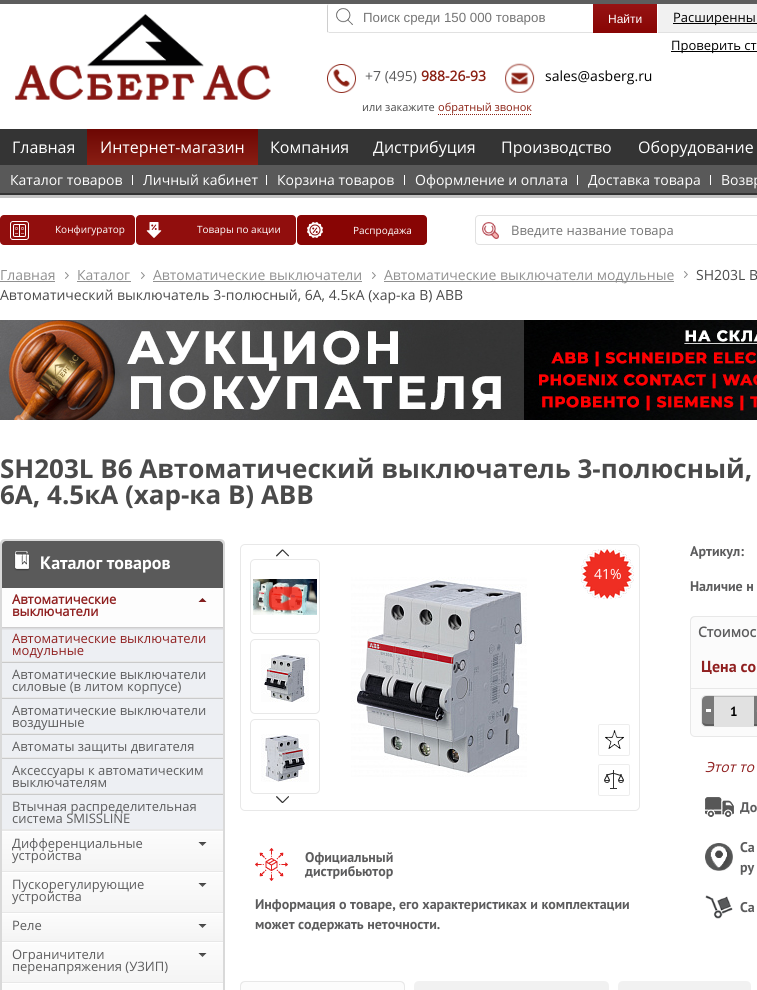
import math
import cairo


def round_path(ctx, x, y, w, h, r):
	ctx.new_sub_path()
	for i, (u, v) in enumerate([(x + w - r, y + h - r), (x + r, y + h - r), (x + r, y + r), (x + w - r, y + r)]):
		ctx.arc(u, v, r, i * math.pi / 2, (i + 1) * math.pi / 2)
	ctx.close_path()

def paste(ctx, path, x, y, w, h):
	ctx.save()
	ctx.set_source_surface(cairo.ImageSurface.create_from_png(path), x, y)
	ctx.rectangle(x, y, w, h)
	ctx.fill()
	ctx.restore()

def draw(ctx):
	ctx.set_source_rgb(1, 1, 1)
	ctx.paint()
	ctx.set_source_rgb(0.365, 0.365, 0.365)
	ctx.rectangle(0, 0, 757, 4)
	ctx.fill()
	paste(ctx, 'media/1.png', 15, 14, 256, 86)
	paste(ctx, 'media/2.png', 336, 8, 17, 17)
	ctx.set_source_rgb(0.882, 0.882, 0.882)
	ctx.new_path()
	ctx.move_to(594, 33)
	ctx.line_to(329, 33)
	ctx.line_to(328, 32)
	ctx.line_to(329, 32)
	ctx.line_to(593, 32)
	ctx.close_path()
	ctx.fill()
	ctx.set_source_rgb(0.808, 0.808, 0.808)
	ctx.new_path()
	ctx.move_to(329, 4)
	ctx.curve_to(328, 4, 327, 5, 327, 6)
	ctx.line_to(327, 31)
	ctx.curve_to(327, 31.5, 327, 32, 327.5, 32.5)
	ctx.line_to(328.5, 31.5)
	ctx.line_to(328, 31)
	ctx.line_to(328, 6)
	ctx.curve_to(328, 5, 328, 4, 329, 4)
	ctx.close_path()
	ctx.fill()
	ctx.select_font_face('Liberation Sans')
	ctx.set_font_size(13.3)
	ctx.set_source_rgb(0.459, 0.459, 0.459)
	ctx.move_to(363, 22)
	ctx.show_text('Поиск среди 150 000 товаров')
	gradient = cairo.LinearGradient(625, 4, 625, 33)
	gradient.add_color_stop_rgba(0, 0.588, 0.075, 0.075, 1)
	gradient.add_color_stop_rgba(1, 0.533, 0.02, 0.016, 1)
	ctx.set_source(gradient)
	ctx.rectangle(593, 4, 64, 29)
	ctx.fill()
	ctx.set_font_size(12)
	ctx.set_source_rgb(1, 1, 1)
	ctx.move_to(608, 23)
	ctx.show_text('Найти')
	ctx.set_source_rgb(0.945, 0.945, 0.945)
	ctx.rectangle(658, 4, 99, 28)
	ctx.fill()
	ctx.set_source_rgb(0.882, 0.882, 0.882)
	ctx.rectangle(658, 32, 99, 1)
	ctx.fill()
	ctx.set_source_rgb(0, 0, 0)
	ctx.rectangle(673, 23, 84, 1)
	ctx.fill()
	ctx.select_font_face('Open Sans')
	ctx.set_font_size(13)
	ctx.move_to(673, 22)
	ctx.show_text('Расширенны')
	ctx.rectangle(671, 51, 86, 1)
	ctx.fill()
	ctx.move_to(671, 50)
	ctx.show_text('Проверить ст')
	paste(ctx, 'media/3.png', 327, 64, 29, 29)
	ctx.set_font_size(14)
	ctx.set_source_rgb(0.361, 0.361, 0.365)
	ctx.move_to(365, 81)
	ctx.show_text('+7 (495)')
	ctx.select_font_face('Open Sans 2', cairo.FONT_SLANT_NORMAL, cairo.FONT_WEIGHT_BOLD)
	ctx.set_source_rgb(0.541, 0.122, 0.071)
	ctx.move_to(421, 81)
	ctx.show_text('988-26-93')
	paste(ctx, 'media/4.png', 505, 63, 30, 30)
	ctx.select_font_face('Open Sans')
	ctx.set_source_rgb(0, 0, 0)
	ctx.move_to(545, 81)
	ctx.show_text('sales@asberg.ru')
	ctx.set_font_size(11)
	ctx.set_source_rgb(0.29, 0.29, 0.29)
	ctx.move_to(362, 111)
	ctx.show_text('или закажите')
	ctx.set_source_rgb(0.541, 0.122, 0.071)
	ctx.move_to(438, 111)
	ctx.show_text('обратный звонок')
	ctx.new_path()
	ctx.move_to(438, 114.5)
	ctx.line_to(532, 114.5)
	ctx.set_source_rgb(0.553, 0.141, 0.09)
	ctx.set_line_width(1)
	ctx.set_dash([1, 1])
	ctx.stroke()
	ctx.set_source_rgb(0.204, 0.204, 0.204)
	ctx.rectangle(0, 129, 757, 66)
	ctx.fill()
	ctx.set_font_size(16)
	ctx.set_source_rgb(1, 1, 1)
	ctx.move_to(373, 153)
	ctx.show_text('Дистрибуция')
	ctx.move_to(638, 153)
	ctx.show_text('Оборудование')
	gradient = cairo.LinearGradient(173, 129, 173, 165)
	gradient.add_color_stop_rgba(0, 0.427, 0.027, 0.012, 1)
	gradient.add_color_stop_rgba(1, 0.537, 0.118, 0.078, 1)
	ctx.set_source(gradient)
	ctx.rectangle(87, 129, 171, 36)
	ctx.fill()
	ctx.set_source_rgb(1, 1, 1)
	ctx.move_to(100, 153)
	ctx.show_text('Интернет-магазин')
	ctx.set_source_rgb(0.349, 0.349, 0.349)
	ctx.rectangle(0, 165, 757, 28)
	ctx.fill()
	ctx.set_font_size(14)
	ctx.set_source_rgb(1, 1, 1)
	ctx.move_to(10, 185)
	ctx.show_text('Каталог товаров')
	ctx.rectangle(132, 175, 1, 10)
	ctx.fill()
	ctx.move_to(143, 185)
	ctx.show_text('Личный кабинет')
	ctx.rectangle(266, 175, 1, 10)
	ctx.fill()
	ctx.move_to(277, 185)
	ctx.show_text('Корзина товаров')
	ctx.rectangle(404, 175, 1, 10)
	ctx.fill()
	ctx.move_to(415, 185)
	ctx.show_text('Оформление и оплата')
	ctx.rectangle(577, 175, 1, 10)
	ctx.fill()
	ctx.move_to(588, 185)
	ctx.show_text('Доставка товара')
	ctx.rectangle(710, 175, 1, 10)
	ctx.fill()
	ctx.move_to(721, 185)
	ctx.show_text('Возвр')
	ctx.set_font_size(16)
	for x, y, s in [
		(12, 153, 'Главная'),
		(270, 153, 'Компания'),
		(501, 153, 'Производство'),
	]:
		ctx.move_to(x, y)
		ctx.show_text(s)
	ctx.set_source_rgb(0.769, 0.769, 0.769)
	ctx.rectangle(0, 195, 757, 3)
	ctx.fill()
	ctx.set_source_rgb(0.569, 0.055, 0.051)
	round_path(ctx, 0, 215, 135, 30, 4)
	ctx.fill()
	paste(ctx, 'media/5.png', 10, 221, 19, 19)
	ctx.set_font_size(10)
	ctx.set_source_rgb(1, 1, 1)
	ctx.move_to(55, 233)
	ctx.show_text('Конфигуратор')
	ctx.set_source_rgb(0.569, 0.055, 0.051)
	round_path(ctx, 136, 215, 160, 30, 4)
	ctx.fill()
	paste(ctx, 'media/6.png', 146, 222, 16, 16)
	ctx.set_source_rgb(1, 1, 1)
	ctx.move_to(197, 233)
	ctx.show_text('Товары по акции')
	ctx.set_source_rgb(0.533, 0.02, 0.016)
	round_path(ctx, 297, 215, 130, 30, 4)
	ctx.fill()
	paste(ctx, 'media/7.png', 307, 222, 16, 16)
	ctx.set_source_rgb(1, 1, 1)
	ctx.move_to(353, 234)
	ctx.show_text('Распродажа')
	round_path(ctx, 475.5, 215.5, 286, 29, 3.5)
	ctx.set_source_rgb(0.882, 0.882, 0.882)
	ctx.set_dash([])
	ctx.stroke()
	paste(ctx, 'media/8.png', 482, 222, 17, 17)
	ctx.set_font_size(13)
	ctx.set_source_rgb(0.459, 0.459, 0.459)
	ctx.move_to(511, 235)
	ctx.show_text('Введите название товара')
	ctx.set_font_size(14)
	ctx.set_source_rgb(0.565, 0.565, 0.565)
	ctx.move_to(0, 280)
	ctx.show_text('Главная')
	ctx.rectangle(0, 281, 55, 1)
	ctx.fill()
	paste(ctx, 'media/9.png', 65, 272, 4, 7)
	ctx.move_to(77, 280)
	ctx.show_text('Каталог')
	ctx.rectangle(77, 281, 54, 1)
	ctx.fill()
	paste(ctx, 'media/9.png', 141, 272, 4, 7)
	ctx.move_to(153, 280)
	ctx.show_text('Автоматические выключатели')
	ctx.rectangle(153, 281, 209, 1)
	ctx.fill()
	paste(ctx, 'media/9.png', 372, 272, 4, 7)
	ctx.rectangle(384, 281, 290, 1)
	ctx.fill()
	ctx.move_to(384, 280)
	ctx.show_text('Автоматические выключатели модульные')
	paste(ctx, 'media/9.png', 684, 271, 4, 7)
	ctx.set_source_rgb(0.29, 0.29, 0.29)
	ctx.move_to(696, 280)
	ctx.show_text('SH203L B')
	ctx.move_to(0, 300)
	ctx.show_text('Автоматический выключатель 3-полюсный, 6А, 4.5кА (хар-ка B) ABB')
	paste(ctx, 'media/10.png', 0, 320, 757, 100)
	ctx.select_font_face('Open Sans', cairo.FONT_SLANT_NORMAL, cairo.FONT_WEIGHT_BOLD)
	ctx.set_font_size(26)
	ctx.move_to(0, 478)
	ctx.show_text('SH203L B6 Автоматический выключатель 3-полюсный,')
	ctx.move_to(0, 504)
	ctx.show_text('6А, 4.5кА (хар-ка B) ABB')
	ctx.set_source_rgb(0.851, 0.851, 0.851)
	ctx.new_path()
	ctx.move_to(5, 539)
	ctx.line_to(220, 539)
	ctx.curve_to(223, 539, 225, 541, 225, 544)
	ctx.line_to(225, 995)
	ctx.line_to(0, 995)
	ctx.line_to(0, 544)
	ctx.curve_to(0, 541, 2, 539, 5, 539)
	ctx.close_path()
	ctx.fill()
	ctx.set_source_rgb(0.353, 0.353, 0.353)
	ctx.new_path()
	ctx.move_to(6, 541)
	ctx.line_to(219, 541)
	ctx.curve_to(221, 541, 223, 543, 223, 545)
	ctx.line_to(223, 588)
	ctx.line_to(2, 588)
	ctx.line_to(2, 545)
	ctx.curve_to(2, 543, 4, 541, 6, 541)
	ctx.close_path()
	ctx.fill()
	paste(ctx, 'media/11.png', 14, 551, 16, 20)
	ctx.select_font_face('PT Sans', cairo.FONT_SLANT_NORMAL, cairo.FONT_WEIGHT_BOLD)
	ctx.set_font_size(18)
	ctx.set_source_rgb(1, 1, 1)
	ctx.move_to(40, 569)
	ctx.show_text('Каталог товаров')
	ctx.rectangle(2, 831, 221, 153)
	ctx.fill()
	ctx.set_source_rgb(0.91, 0.91, 0.91)
	ctx.rectangle(2, 829, 221, 2)
	ctx.fill()
	ctx.set_source_rgb(0.992, 0.992, 0.992)
	ctx.rectangle(2, 588, 221, 39)
	ctx.fill()
	ctx.select_font_face('Open Sans 2', cairo.FONT_SLANT_NORMAL, cairo.FONT_WEIGHT_BOLD)
	ctx.set_font_size(13)
	ctx.set_source_rgb(0.565, 0.125, 0.125)
	ctx.move_to(12, 604)
	ctx.show_text('Автоматические')
	paste(ctx, 'media/12.png', 198, 598, 9, 4)
	ctx.move_to(12, 616)
	ctx.show_text('выключатели')
	ctx.set_source_rgb(0.929, 0.937, 0.953)
	ctx.rectangle(2, 627, 221, 34)
	ctx.fill()
	paste(ctx, 'media/13.png', 2, 627, 221, 3)
	ctx.set_source_rgb(0.91, 0.91, 0.91)
	ctx.rectangle(2, 661, 221, 1)
	ctx.fill()
	ctx.select_font_face('Open Sans')
	ctx.set_source_rgb(0.565, 0.125, 0.125)
	ctx.move_to(12, 643)
	ctx.show_text('Автоматические выключатели')
	ctx.move_to(12, 655)
	ctx.show_text('модульные')
	ctx.set_source_rgb(0.792, 0.792, 0.792)
	ctx.rectangle(2, 662, 221, 1)
	ctx.fill()
	ctx.set_source_rgb(0.91, 0.91, 0.91)
	ctx.rectangle(2, 697, 221, 1)
	ctx.fill()
	ctx.set_source_rgb(0.929, 0.937, 0.953)
	ctx.rectangle(2, 663, 221, 34)
	ctx.fill()
	ctx.set_source_rgb(0.361, 0.361, 0.365)
	ctx.move_to(12, 679)
	ctx.show_text('Автоматические выключатели')
	ctx.move_to(12, 691)
	ctx.show_text('силовые (в литом корпусе)')
	ctx.set_source_rgb(0.792, 0.792, 0.792)
	ctx.rectangle(2, 698, 221, 1)
	ctx.fill()
	ctx.set_source_rgb(0.91, 0.91, 0.91)
	ctx.rectangle(2, 733, 221, 1)
	ctx.fill()
	ctx.set_source_rgb(0.929, 0.937, 0.953)
	ctx.rectangle(2, 699, 221, 34)
	ctx.fill()
	ctx.set_source_rgb(0.361, 0.361, 0.365)
	ctx.move_to(12, 715)
	ctx.show_text('Автоматические выключатели')
	ctx.move_to(12, 727)
	ctx.show_text('воздушные')
	ctx.set_source_rgb(0.792, 0.792, 0.792)
	ctx.rectangle(2, 734, 221, 1)
	ctx.fill()
	ctx.set_source_rgb(0.91, 0.91, 0.91)
	ctx.rectangle(2, 757, 221, 1)
	ctx.fill()
	ctx.set_source_rgb(0.929, 0.937, 0.953)
	ctx.rectangle(2, 735, 221, 22)
	ctx.fill()
	ctx.set_source_rgb(0.361, 0.361, 0.365)
	ctx.move_to(12, 751)
	ctx.show_text('Автоматы защиты двигателя')
	ctx.set_source_rgb(0.792, 0.792, 0.792)
	ctx.rectangle(2, 758, 221, 1)
	ctx.fill()
	ctx.set_source_rgb(0.91, 0.91, 0.91)
	ctx.rectangle(2, 793, 221, 1)
	ctx.fill()
	ctx.set_source_rgb(0.929, 0.937, 0.953)
	ctx.rectangle(2, 759, 221, 34)
	ctx.fill()
	ctx.set_source_rgb(0.361, 0.361, 0.365)
	ctx.move_to(12, 775)
	ctx.show_text('Аксессуары к автоматическим')
	ctx.move_to(12, 787)
	ctx.show_text('выключателям')
	ctx.set_source_rgb(0.792, 0.792, 0.792)
	ctx.rectangle(2, 794, 221, 1)
	ctx.fill()
	ctx.set_source_rgb(0.929, 0.937, 0.953)
	ctx.rectangle(2, 795, 221, 34)
	ctx.fill()
	ctx.set_source_rgb(0.361, 0.361, 0.365)
	ctx.move_to(12, 811)
	ctx.show_text('Втычная распределительная')
	ctx.move_to(12, 823)
	ctx.show_text('система SMISSLINE')
	ctx.set_source_rgb(0.91, 0.91, 0.91)
	ctx.rectangle(2, 871, 221, 1)
	ctx.fill()
	gradient = cairo.LinearGradient(113, 871, 113, 832)
	gradient.add_color_stop_rgba(0, 0.957, 0.957, 0.957, 1)
	gradient.add_color_stop_rgba(1, 0.988, 0.988, 0.988, 1)
	ctx.set_source(gradient)
	ctx.rectangle(2, 832, 221, 39)
	ctx.fill()
	ctx.set_source_rgb(0.361, 0.361, 0.365)
	ctx.move_to(12, 848)
	ctx.show_text('Дифференциальные')
	paste(ctx, 'media/14.png', 198, 842, 9, 4)
	ctx.move_to(12, 860)
	ctx.show_text('устройства')
	ctx.set_source_rgb(0.91, 0.91, 0.91)
	ctx.rectangle(2, 912, 221, 1)
	ctx.fill()
	gradient = cairo.LinearGradient(113, 912, 113, 873)
	gradient.add_color_stop_rgba(0, 0.957, 0.957, 0.957, 1)
	gradient.add_color_stop_rgba(1, 0.988, 0.988, 0.988, 1)
	ctx.set_source(gradient)
	ctx.rectangle(2, 873, 221, 39)
	ctx.fill()
	ctx.set_source_rgb(0.361, 0.361, 0.365)
	ctx.move_to(12, 889)
	ctx.show_text('Пускорегулирующие')
	paste(ctx, 'media/14.png', 198, 883, 9, 4)
	ctx.move_to(12, 901)
	ctx.show_text('устройства')
	ctx.set_source_rgb(0.91, 0.91, 0.91)
	ctx.rectangle(2, 941, 221, 1)
	ctx.fill()
	gradient = cairo.LinearGradient(113, 941, 113, 914)
	gradient.add_color_stop_rgba(0, 0.957, 0.957, 0.957, 1)
	gradient.add_color_stop_rgba(1, 0.988, 0.988, 0.988, 1)
	ctx.set_source(gradient)
	ctx.rectangle(2, 914, 221, 27)
	ctx.fill()
	ctx.set_source_rgb(0.361, 0.361, 0.365)
	ctx.move_to(12, 930)
	ctx.show_text('Реле')
	paste(ctx, 'media/15.png', 198, 924, 9, 4)
	ctx.set_source_rgb(0.91, 0.91, 0.91)
	ctx.rectangle(2, 982, 221, 1)
	ctx.fill()
	gradient = cairo.LinearGradient(113, 982, 113, 943)
	gradient.add_color_stop_rgba(0, 0.957, 0.957, 0.957, 1)
	gradient.add_color_stop_rgba(1, 0.988, 0.988, 0.988, 1)
	ctx.set_source(gradient)
	ctx.rectangle(2, 943, 221, 39)
	ctx.fill()
	ctx.set_source_rgb(0.361, 0.361, 0.365)
	ctx.move_to(12, 959)
	ctx.show_text('Ограничители')
	paste(ctx, 'media/14.png', 198, 953, 9, 4)
	ctx.move_to(12, 971)
	ctx.show_text('перенапряжения (УЗИП)')
	ctx.set_source_rgb(0.988, 0.988, 0.988)
	ctx.rectangle(2, 984, 221, 6)
	ctx.fill()
	round_path(ctx, 240.5, 544.5, 399, 266, 4.5)
	ctx.set_source_rgb(0.91, 0.91, 0.91)
	ctx.stroke()
	paste(ctx, 'media/16.png', 276, 549, 13, 8)
	paste(ctx, 'media/17.png', 253, 579, 64, 36)
	round_path(ctx, 250.5, 559.5, 69, 74, 4.5)
	ctx.stroke()
	paste(ctx, 'media/18.png', 269, 586, 33, 25)
	round_path(ctx, 250.5, 639.5, 69, 74, 4.5)
	ctx.stroke()
	paste(ctx, 'media/19.png', 261, 654, 48, 48)
	round_path(ctx, 250.5, 719.5, 69, 74, 4.5)
	ctx.stroke()
	paste(ctx, 'media/20.png', 261, 734, 48, 48)
	paste(ctx, 'media/21.png', 276, 796, 13, 7)
	paste(ctx, 'media/22.png', 581, 549, 53, 50)
	ctx.set_font_size(14)
	ctx.set_source_rgb(1, 1, 1)
	ctx.move_to(594, 579)
	ctx.show_text('41%')
	paste(ctx, 'media/23.png', 351, 577, 176, 200)
	paste(ctx, 'media/24.png', 605, 730, 19, 19)
	round_path(ctx, 598.5, 724.5, 31, 31, 1.5)
	ctx.set_source_rgb(0.929, 0.929, 0.929)
	ctx.stroke()
	paste(ctx, 'media/25.png', 604, 770, 20, 19)
	round_path(ctx, 598.5, 764.5, 31, 31, 1.5)
	ctx.stroke()
	paste(ctx, 'media/26.png', 255, 848, 33, 33)
	ctx.select_font_face('PT Sans', cairo.FONT_SLANT_NORMAL, cairo.FONT_WEIGHT_BOLD)
	ctx.set_source_rgb(0.361, 0.361, 0.365)
	for x, y, s in [
		(305, 862, 'Официальный'),
		(305, 876, 'дистрибьютор'),
		(255, 909, 'Информация о товаре, его характеристиках и комплектации'),
		(255, 929, 'может содержать неточности.'),
		(690, 556, 'Артикул:'),
		(690, 591, 'Наличие н'),
	]:
		ctx.move_to(x, y)
		ctx.show_text(s)
	ctx.set_source_rgb(0.984, 0.984, 0.984)
	ctx.new_path()
	ctx.move_to(690.5, 646.5)
	ctx.line_to(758, 646.5)
	ctx.curve_to(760.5, 646.5, 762.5, 648.5, 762.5, 651)
	ctx.line_to(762.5, 732)
	ctx.curve_to(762.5, 734.5, 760.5, 736.5, 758, 736.5)
	ctx.line_to(695, 736.5)
	ctx.curve_to(692.5, 736.5, 690.5, 734.5, 690.5, 732)
	ctx.close_path()
	ctx.fill_preserve()
	ctx.set_source_rgb(0.91, 0.91, 0.91)
	ctx.stroke()
	ctx.set_source_rgb(0.984, 0.984, 0.984)
	ctx.new_path()
	ctx.move_to(695, 616)
	ctx.line_to(757, 616)
	ctx.curve_to(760, 616, 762, 618, 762, 621)
	ctx.line_to(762, 647)
	ctx.line_to(690, 647)
	ctx.line_to(690, 621)
	ctx.curve_to(690, 618, 692, 616, 695, 616)
	ctx.close_path()
	ctx.fill()
	ctx.set_source_rgb(0.91, 0.91, 0.91)
	ctx.set_fill_rule(cairo.FILL_RULE_EVEN_ODD)
	ctx.new_path()
	ctx.move_to(695, 616)
	ctx.line_to(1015, 616)
	ctx.curve_to(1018, 616, 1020, 618, 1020, 621)
	ctx.line_to(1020, 647)
	ctx.line_to(690, 647)
	ctx.line_to(690, 621)
	ctx.curve_to(690, 618, 692, 616, 695, 616)
	ctx.close_path()
	ctx.move_to(695, 617)
	ctx.line_to(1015, 617)
	ctx.curve_to(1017, 617, 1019, 619, 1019, 621)
	ctx.line_to(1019, 647)
	ctx.line_to(691, 647)
	ctx.line_to(691, 621)
	ctx.curve_to(691, 619, 693, 617, 695, 617)
	ctx.close_path()
	ctx.fill()
	ctx.select_font_face('Open Sans 2', cairo.FONT_SLANT_NORMAL, cairo.FONT_WEIGHT_BOLD)
	ctx.set_source_rgb(0.361, 0.361, 0.365)
	ctx.move_to(698, 637)
	ctx.show_text('Стоимос')
	ctx.set_source_rgb(0.91, 0.91, 0.91)
	ctx.rectangle(691, 688, 66, 1)
	ctx.fill()
	ctx.select_font_face('PT Sans', cairo.FONT_SLANT_NORMAL, cairo.FONT_WEIGHT_BOLD)
	ctx.set_font_size(16)
	ctx.set_source_rgb(0.565, 0.125, 0.125)
	ctx.move_to(701, 672)
	ctx.show_text('Цена со')
	round_path(ctx, 701.5, 695.5, 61, 31, 4.5)
	ctx.set_source_rgb(0.91, 0.91, 0.91)
	ctx.stroke()
	ctx.set_source_rgb(0.882, 0.882, 0.882)
	round_path(ctx, 702, 696, 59, 31, 4)
	ctx.fill()
	ctx.set_source_rgba(0, 0, 0, 0.15)
	ctx.set_fill_rule(cairo.FILL_RULE_WINDING)
	ctx.new_path()
	ctx.move_to(706, 697)
	ctx.line_to(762, 697)
	ctx.curve_to(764, 697, 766, 699, 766, 701)
	ctx.curve_to(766, 694, 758, 696, 753, 696)
	ctx.line_to(715, 696)
	ctx.curve_to(710, 696, 702, 694, 702, 701)
	ctx.curve_to(702, 699, 704, 697, 706, 697)
	ctx.close_path()
	ctx.fill()
	ctx.set_source_rgb(0.475, 0.475, 0.475)
	ctx.new_path()
	ctx.move_to(707, 696)
	ctx.line_to(714, 696)
	ctx.line_to(714, 726)
	ctx.line_to(707, 726)
	ctx.curve_to(704, 726, 702, 724, 702, 721)
	ctx.line_to(702, 701)
	ctx.curve_to(702, 698, 704, 696, 707, 696)
	ctx.close_path()
	ctx.fill()
	ctx.set_source_rgb(0.365, 0.365, 0.365)
	ctx.new_path()
	ctx.move_to(714, 726)
	ctx.line_to(714, 724)
	ctx.curve_to(711.5, 724, 702, 725, 702, 721)
	ctx.curve_to(702, 724, 704, 726, 707, 726)
	ctx.close_path()
	ctx.fill()
	ctx.set_source_rgb(1, 1, 1)
	ctx.rectangle(706, 709, 5, 3)
	ctx.fill()
	ctx.set_font_size(13.3)
	ctx.set_source_rgb(0, 0, 0)
	ctx.move_to(730, 716)
	ctx.show_text('1')
	ctx.set_source_rgb(0.475, 0.475, 0.475)
	ctx.rectangle(754, 696, 3, 30)
	ctx.fill()
	ctx.set_source_rgb(0.365, 0.365, 0.365)
	ctx.set_fill_rule(cairo.FILL_RULE_EVEN_ODD)
	ctx.new_path()
	ctx.move_to(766, 721.5)
	ctx.line_to(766, 721)
	ctx.close_path()
	ctx.move_to(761, 726)
	ctx.curve_to(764, 726, 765.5, 724.5, 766, 721.5)
	ctx.curve_to(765, 725, 757, 724, 754, 724)
	ctx.line_to(754, 726)
	ctx.close_path()
	ctx.fill()
	paste(ctx, 'media/27.png', 756, 710, 1, 2)
	ctx.select_font_face('Open Sans', cairo.FONT_SLANT_ITALIC)
	ctx.set_font_size(14)
	ctx.set_source_rgb(0.565, 0.125, 0.125)
	ctx.move_to(705, 772)
	ctx.show_text('Этот то')
	paste(ctx, 'media/28.png', 705, 797, 29, 20)
	ctx.select_font_face('PT Sans', cairo.FONT_SLANT_NORMAL, cairo.FONT_WEIGHT_BOLD)
	ctx.set_source_rgb(0.361, 0.361, 0.365)
	ctx.move_to(740, 812)
	ctx.show_text('До')
	paste(ctx, 'media/29.png', 705, 843, 28, 28)
	ctx.move_to(740, 852)
	ctx.show_text('Са')
	ctx.move_to(740, 872)
	ctx.show_text('ру')
	paste(ctx, 'media/30.png', 705, 895, 28, 24)
	ctx.move_to(740, 912)
	ctx.show_text('Са')
	ctx.set_source_rgb(0.988, 0.988, 0.988)
	ctx.new_path()
	ctx.move_to(245, 981)
	ctx.line_to(400, 981)
	ctx.curve_to(403, 981, 405, 983, 405, 986)
	ctx.line_to(405, 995)
	ctx.line_to(240, 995)
	ctx.line_to(240, 986)
	ctx.curve_to(240, 983, 242, 981, 245, 981)
	ctx.close_path()
	ctx.fill()
	ctx.set_source_rgb(0.91, 0.91, 0.91)
	ctx.new_path()
	ctx.move_to(245, 981)
	ctx.line_to(400, 981)
	ctx.curve_to(403, 981, 405, 983, 405, 986)
	ctx.line_to(405, 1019)
	ctx.line_to(240, 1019)
	ctx.line_to(240, 986)
	ctx.curve_to(240, 983, 242, 981, 245, 981)
	ctx.close_path()
	ctx.move_to(245, 982)
	ctx.line_to(400, 982)
	ctx.curve_to(402, 982, 404, 984, 404, 986)
	ctx.line_to(404, 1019)
	ctx.line_to(241, 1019)
	ctx.line_to(241, 986)
	ctx.curve_to(241, 984, 243, 982, 245, 982)
	ctx.close_path()
	ctx.fill()
	ctx.set_source_rgb(0.945, 0.945, 0.945)
	ctx.new_path()
	ctx.move_to(419, 981)
	ctx.line_to(604, 981)
	ctx.curve_to(607, 981, 609, 983, 609, 986)
	ctx.line_to(609, 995)
	ctx.line_to(414, 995)
	ctx.line_to(414, 986)
	ctx.curve_to(414, 983, 416, 981, 419, 981)
	ctx.close_path()
	ctx.fill()
	ctx.new_path()
	ctx.move_to(623, 981)
	ctx.line_to(746, 981)
	ctx.curve_to(749, 981, 751, 983, 751, 986)
	ctx.line_to(751, 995)
	ctx.line_to(618, 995)
	ctx.line_to(618, 986)
	ctx.curve_to(618, 983, 620, 981, 623, 981)
	ctx.close_path()
	ctx.fill()


surface = cairo.ImageSurface(cairo.FORMAT_RGB24, 757, 990)
ctx = cairo.Context(surface)
options = cairo.FontOptions()
options.set_hint_metrics(cairo.HINT_METRICS_OFF)
options.set_hint_style(cairo.HINT_STYLE_NONE)
ctx.set_font_options(options)
ctx.set_miter_limit(4)
draw(ctx)
surface.write_to_png('image.png')
